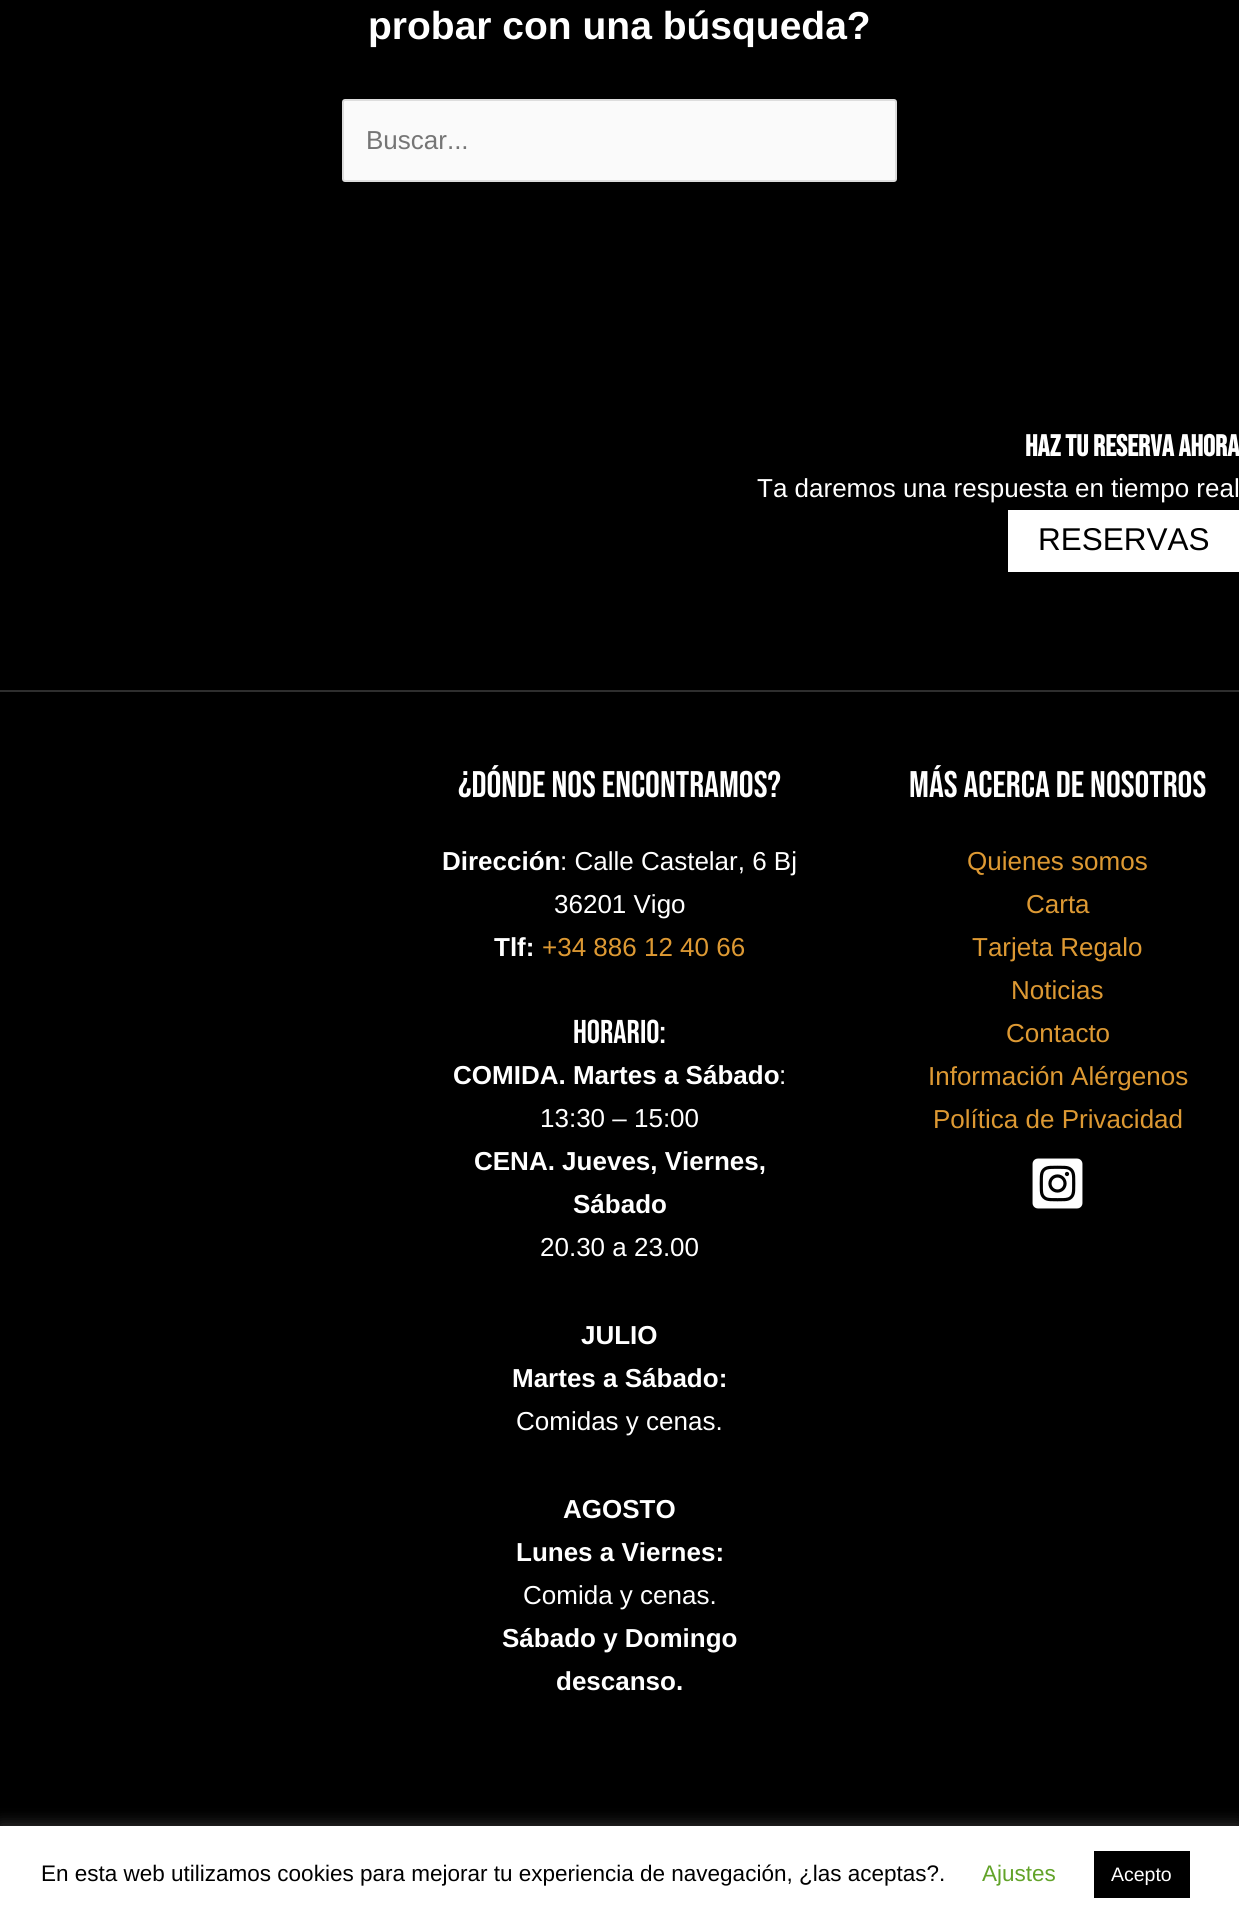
import math
import cairo


def round_path(ctx, x, y, w, h, r):
	ctx.new_sub_path()
	for i, (u, v) in enumerate([(x + w - r, y + h - r), (x + r, y + h - r), (x + r, y + r), (x + w - r, y + r)]):
		ctx.arc(u, v, r, i * math.pi / 2, (i + 1) * math.pi / 2)
	ctx.close_path()

def blur_box(ctx, x, y, w, h, r, blur, alpha):
	ctx.push_group_with_content(cairo.CONTENT_ALPHA)
	ctx.set_operator(cairo.OPERATOR_SOURCE)
	for i in range(15, -16, -2):
		e = blur * i / 6
		if min(w, h) + 2 * e > 0:
			ctx.set_source_rgba(0, 0, 0, alpha * math.erfc((i - 1) / 8.5) / 2)
			round_path(ctx, x - e, y - e, w + 2 * e, h + 2 * e, max(0, min(r + e + blur * .6, min(w, h) / 2 + e)))
			ctx.fill()
	ctx.mask(ctx.pop_group())

def paste(ctx, path, x, y, w, h):
	ctx.save()
	ctx.set_source_surface(cairo.ImageSurface.create_from_png(path), x, y)
	ctx.rectangle(x, y, w, h)
	ctx.fill()
	ctx.restore()

def draw(ctx):
	ctx.set_source_rgb(0, 0, 0)
	ctx.paint()
	ctx.select_font_face('Liberation Sans', cairo.FONT_SLANT_NORMAL, cairo.FONT_WEIGHT_BOLD)
	ctx.set_font_size(39)
	ctx.set_source_rgb(1, 1, 1)
	ctx.move_to(368, 39)
	ctx.show_text('probar con una búsqueda?')
	ctx.set_source_rgb(0.98, 0.98, 0.98)
	round_path(ctx, 343, 100, 553, 81, 2)
	ctx.fill_preserve()
	ctx.set_source_rgb(0.867, 0.867, 0.867)
	ctx.stroke()
	ctx.select_font_face('Liberation Sans')
	ctx.set_font_size(26)
	ctx.set_source_rgb(0.459, 0.459, 0.459)
	ctx.move_to(366, 149)
	ctx.show_text('Buscar...')
	ctx.select_font_face('Bebas Neue', cairo.FONT_SLANT_NORMAL, cairo.FONT_WEIGHT_BOLD)
	ctx.set_font_size(30)
	ctx.set_source_rgb(1, 1, 1)
	ctx.move_to(1025, 456)
	ctx.show_text('Haz tu reserva ahora')
	ctx.select_font_face('Liberation Sans')
	ctx.set_font_size(26)
	ctx.move_to(757, 497)
	ctx.show_text('Ta daremos una respuesta en tiempo real')
	ctx.rectangle(1008, 510, 231, 62)
	ctx.fill()
	ctx.set_font_size(31.5)
	ctx.set_source_rgb(0, 0, 0)
	ctx.move_to(1038, 550)
	ctx.show_text('RESERVAS')
	ctx.set_source_rgb(0.18, 0.18, 0.18)
	ctx.rectangle(0, 690, 1239, 2)
	ctx.fill()
	ctx.select_font_face('Bebas Neue')
	ctx.set_font_size(37)
	ctx.set_source_rgb(1, 1, 1)
	ctx.move_to(458, 797)
	ctx.show_text('¿Dónde nos encontramos?')
	ctx.select_font_face('Liberation Sans', cairo.FONT_SLANT_NORMAL, cairo.FONT_WEIGHT_BOLD)
	ctx.set_font_size(26)
	ctx.move_to(442, 870)
	ctx.show_text('Dirección')
	ctx.select_font_face('Liberation Sans')
	ctx.move_to(560, 870)
	ctx.show_text(': Calle Castelar, 6 Bj')
	ctx.move_to(554, 913)
	ctx.show_text('36201 Vigo')
	ctx.select_font_face('Liberation Sans', cairo.FONT_SLANT_NORMAL, cairo.FONT_WEIGHT_BOLD)
	ctx.move_to(494, 956)
	ctx.show_text('Tlf:')
	ctx.select_font_face('Liberation Sans')
	ctx.set_source_rgb(0.867, 0.6, 0.2)
	ctx.move_to(542, 956)
	ctx.show_text('+34 886 12 40 66')
	ctx.select_font_face('Bebas Neue')
	ctx.set_font_size(33)
	ctx.set_source_rgb(1, 1, 1)
	ctx.move_to(573, 1043)
	ctx.show_text('Horario:')
	ctx.select_font_face('Liberation Sans', cairo.FONT_SLANT_NORMAL, cairo.FONT_WEIGHT_BOLD)
	ctx.set_font_size(26)
	ctx.move_to(453, 1084)
	ctx.show_text('COMIDA. Martes a Sábado')
	ctx.select_font_face('Liberation Sans')
	ctx.move_to(779, 1084)
	ctx.show_text(':')
	ctx.move_to(540, 1127)
	ctx.show_text('13:30 – 15:00')
	ctx.select_font_face('Liberation Sans', cairo.FONT_SLANT_NORMAL, cairo.FONT_WEIGHT_BOLD)
	ctx.move_to(474, 1170)
	ctx.show_text('CENA. Jueves, Viernes,')
	ctx.move_to(573, 1213)
	ctx.show_text('Sábado')
	ctx.select_font_face('Liberation Sans')
	ctx.move_to(540, 1256)
	ctx.show_text('20.30 a 23.00')
	ctx.select_font_face('Liberation Sans', cairo.FONT_SLANT_NORMAL, cairo.FONT_WEIGHT_BOLD)
	ctx.move_to(581, 1344)
	ctx.show_text('JULIO')
	ctx.move_to(512, 1387)
	ctx.show_text('Martes a Sábado:')
	ctx.select_font_face('Liberation Sans')
	ctx.move_to(516, 1430)
	ctx.show_text('Comidas y cenas.')
	ctx.select_font_face('Liberation Sans', cairo.FONT_SLANT_NORMAL, cairo.FONT_WEIGHT_BOLD)
	ctx.move_to(563, 1518)
	ctx.show_text('AGOSTO')
	ctx.move_to(516, 1561)
	ctx.show_text('Lunes a Viernes:')
	ctx.select_font_face('Liberation Sans')
	ctx.move_to(523, 1604)
	ctx.show_text('Comida y cenas.')
	ctx.select_font_face('Liberation Sans', cairo.FONT_SLANT_NORMAL, cairo.FONT_WEIGHT_BOLD)
	ctx.move_to(502, 1647)
	ctx.show_text('Sábado y Domingo')
	ctx.move_to(556, 1690)
	ctx.show_text('descanso.')
	ctx.select_font_face('Bebas Neue')
	ctx.set_font_size(37)
	ctx.move_to(909, 797)
	ctx.show_text('Más acerca de nosotros')
	ctx.select_font_face('Liberation Sans')
	ctx.set_font_size(26)
	ctx.set_source_rgb(0.867, 0.6, 0.2)
	for x, y, s in [
		(967, 870, 'Quienes somos'),
		(1026, 913, 'Carta'),
		(972, 956, 'Tarjeta Regalo'),
		(1011, 999, 'Noticias'),
		(1006, 1042, 'Contacto'),
		(928, 1085, 'Información Alérgenos'),
		(933, 1128, 'Política de Privacidad'),
	]:
		ctx.move_to(x, y)
		ctx.show_text(s)
	paste(ctx, 'media/1.png', 1032, 1158, 51, 51)
	ctx.set_source_rgb(0.675, 0.671, 0.671)
	blur_box(ctx, 0, 1824, 1239, 98, 0, 7.5, 0.3)
	ctx.set_source_rgb(1, 1, 1)
	ctx.rectangle(0, 1826, 1239, 96)
	ctx.fill()
	ctx.set_font_size(22.5)
	ctx.set_source_rgb(0, 0, 0)
	ctx.move_to(41, 1881)
	ctx.show_text('En esta web utilizamos cookies para mejorar tu experiencia de navegación, ¿las aceptas?.')
	ctx.set_source_rgb(0.384, 0.639, 0.161)
	ctx.move_to(982, 1881)
	ctx.show_text('Ajustes')
	ctx.set_source_rgb(0, 0, 0)
	ctx.rectangle(1094, 1851, 96, 47)
	ctx.fill()
	ctx.set_font_size(19.5)
	ctx.set_source_rgb(1, 1, 1)
	ctx.move_to(1111, 1881)
	ctx.show_text('Acepto')


surface = cairo.ImageSurface(cairo.FORMAT_RGB24, 1239, 1922)
ctx = cairo.Context(surface)
options = cairo.FontOptions()
options.set_hint_metrics(cairo.HINT_METRICS_OFF)
options.set_hint_style(cairo.HINT_STYLE_NONE)
ctx.set_font_options(options)
ctx.set_miter_limit(4)
draw(ctx)
surface.write_to_png('image.png')
